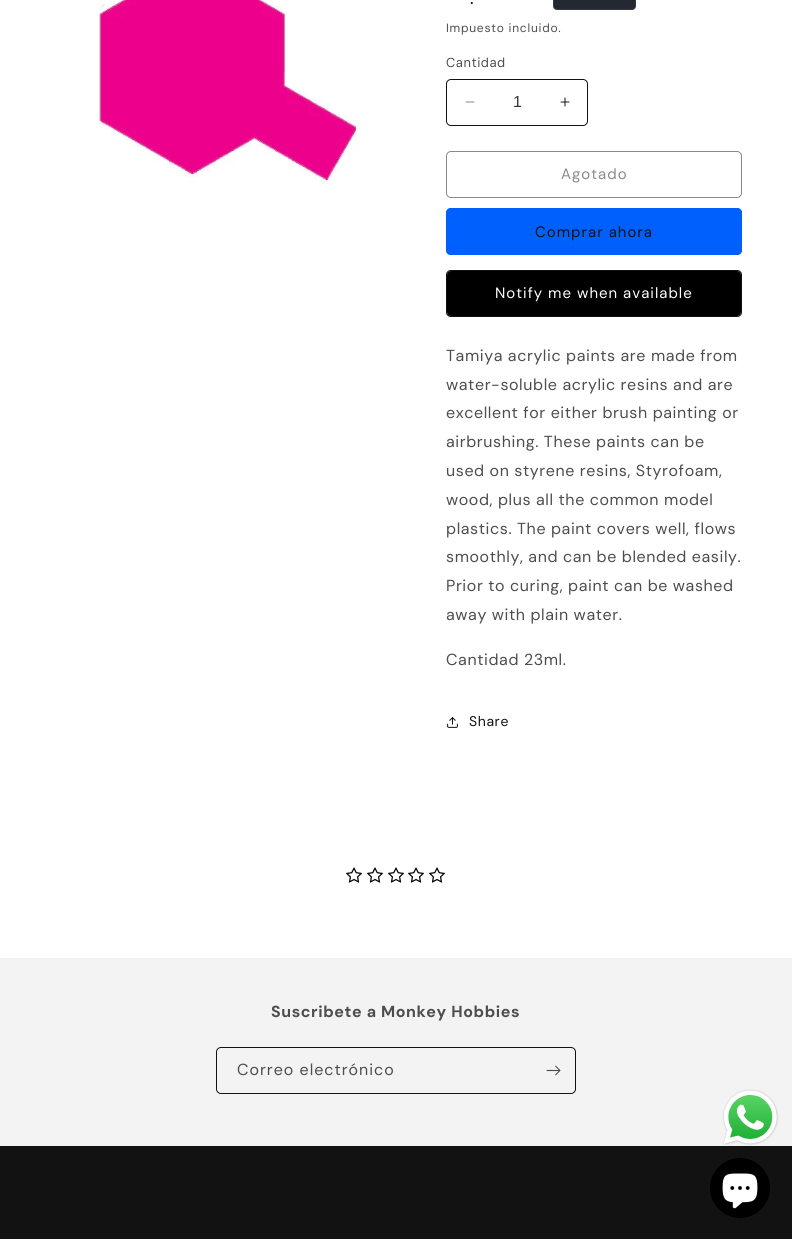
import math
import cairo


def write_spaced(ctx, x, y, s, letter, word):
	ctx.move_to(x, y)
	for ch in s:
		ctx.show_text(ch)
		ctx.rel_move_to(letter + word * (ch == ' '), 0)

def round_path(ctx, x, y, w, h, r):
	ctx.new_sub_path()
	for i, (u, v) in enumerate([(x + w - r, y + h - r), (x + r, y + h - r), (x + r, y + r), (x + w - r, y + r)]):
		ctx.arc(u, v, r, i * math.pi / 2, (i + 1) * math.pi / 2)
	ctx.close_path()

def paste(ctx, path, x, y, w, h):
	ctx.save()
	ctx.set_source_surface(cairo.ImageSurface.create_from_png(path), x, y)
	ctx.rectangle(x, y, w, h)
	ctx.fill()
	ctx.restore()

def draw(ctx):
	ctx.set_source_rgb(1, 1, 1)
	ctx.paint()
	paste(ctx, 'media/1.png', 99, 0, 259, 184)
	ctx.select_font_face('DM Sans')
	ctx.set_font_size(18)
	ctx.set_source_rgb(0.071, 0.071, 0.071)
	write_spaced(ctx, 470, 4, '.', 1, 0)
	ctx.set_source_rgb(0.141, 0.157, 0.2)
	round_path(ctx, 553, -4, 83, 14, 4)
	ctx.fill()
	round_path(ctx, 553.5, -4.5, 82, 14, 3.5)
	ctx.set_source_rgba(1, 1, 1, 0.1)
	ctx.set_line_width(1)
	ctx.stroke()
	ctx.select_font_face('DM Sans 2')
	ctx.set_font_size(12)
	ctx.set_source_rgb(0.302, 0.302, 0.302)
	write_spaced(ctx, 446, 32, 'Impuesto incluido.', 0.75, 0)
	ctx.select_font_face('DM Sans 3')
	ctx.set_font_size(13)
	write_spaced(ctx, 446, 67, 'Cantidad', 0.5, 0)
	paste(ctx, 'media/2.png', 465, 101, 10, 2)
	paste(ctx, 'media/3.png', 560, 97, 10, 10)
	round_path(ctx, 446.5, 79.5, 141, 46, 4.5)
	ctx.set_source_rgb(0.071, 0.071, 0.071)
	ctx.stroke()
	ctx.select_font_face('Liberation Sans')
	ctx.set_font_size(16)
	ctx.set_source_rgb(0.212, 0.212, 0.212)
	ctx.move_to(513, 107)
	ctx.show_text('1')
	round_path(ctx, 446.5, 151.5, 295, 46, 4.5)
	ctx.set_source_rgb(0.537, 0.537, 0.537)
	ctx.stroke()
	ctx.select_font_face('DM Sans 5')
	ctx.set_font_size(15)
	write_spaced(ctx, 561, 179, 'Agotado', 1, 0)
	ctx.set_source_rgb(0, 0.376, 0.996)
	round_path(ctx, 446, 208, 296, 47, 5)
	ctx.fill()
	round_path(ctx, 446.5, 208.5, 295, 46, 4.5)
	ctx.stroke()
	ctx.set_source_rgb(0.071, 0.071, 0.071)
	write_spaced(ctx, 535, 237, 'Comprar ahora', 1, 0)
	ctx.set_source_rgb(0, 0, 0)
	round_path(ctx, 446, 270, 296, 47, 5)
	ctx.fill()
	round_path(ctx, 446.5, 270.5, 295, 46, 4.5)
	ctx.set_source_rgb(1, 1, 1)
	ctx.stroke()
	round_path(ctx, 446.5, 270.5, 295, 46, 4.5)
	ctx.set_source_rgb(0.071, 0.071, 0.071)
	ctx.stroke()
	ctx.set_source_rgb(1, 1, 1)
	write_spaced(ctx, 495, 298, 'Notify me when available', 1, 0)
	ctx.select_font_face('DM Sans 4')
	ctx.set_font_size(16)
	ctx.set_source_rgb(0.302, 0.302, 0.302)
	for x, y, s in [
		(446, 361, 'Tamiya acrylic paints are made from'),
		(446, 390, 'water-soluble acrylic resins and are'),
		(446, 418, 'excellent for either brush painting or'),
		(446, 447, 'airbrushing. These paints can be'),
		(446, 476, 'used on styrene resins, Styrofoam,'),
		(446, 505, 'wood, plus all the common model'),
		(446, 534, 'plastics. The paint covers well, flows'),
		(446, 562, 'smoothly, and can be blended easily.'),
		(446, 591, 'Prior to curing, paint can be washed'),
		(446, 620, 'away with plain water.'),
		(446, 665, 'Cantidad 23ml.'),
	]:
		write_spaced(ctx, x, y, s, 0.6, 0)
	paste(ctx, 'media/4.png', 447, 717, 11, 11)
	ctx.select_font_face('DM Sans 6')
	ctx.set_font_size(14)
	ctx.set_source_rgb(0.071, 0.071, 0.071)
	write_spaced(ctx, 469, 726, 'Share', 0.6, 0)
	paste(ctx, 'media/5.png', 346, 867, 16, 16)
	paste(ctx, 'media/5.png', 367, 867, 16, 16)
	paste(ctx, 'media/5.png', 388, 867, 16, 16)
	paste(ctx, 'media/5.png', 408, 867, 16, 16)
	paste(ctx, 'media/5.png', 429, 867, 16, 16)
	ctx.set_source_rgb(0.953, 0.953, 0.953)
	ctx.rectangle(0, 958, 792, 188)
	ctx.fill()
	ctx.select_font_face('DM Sans', cairo.FONT_SLANT_NORMAL, cairo.FONT_WEIGHT_BOLD)
	ctx.set_font_size(16)
	ctx.set_source_rgb(0.302, 0.302, 0.302)
	write_spaced(ctx, 271, 1017, 'Suscribete a Monkey Hobbies', 0.6, 0)
	round_path(ctx, 216.5, 1047.5, 359, 46, 4.5)
	ctx.set_source_rgb(0.071, 0.071, 0.071)
	ctx.stroke()
	ctx.select_font_face('DM Sans 4')
	ctx.set_source_rgb(0.302, 0.302, 0.302)
	write_spaced(ctx, 237, 1075, 'Correo electrónico', 1, 0)
	paste(ctx, 'media/6.png', 546, 1065, 15, 11)
	paste(ctx, 'media/7.png', 722, 1089, 57, 56)
	ctx.set_source_rgb(0.071, 0.071, 0.071)
	ctx.rectangle(0, 1146, 792, 93)
	ctx.fill()
	ctx.set_source_rgb(0, 0, 0)
	ctx.arc(740, 1188, 30, 0, 2 * math.pi)
	ctx.fill()
	paste(ctx, 'media/8.png', 722, 1173, 36, 36)


surface = cairo.ImageSurface(cairo.FORMAT_RGB24, 792, 1239)
ctx = cairo.Context(surface)
options = cairo.FontOptions()
options.set_hint_metrics(cairo.HINT_METRICS_OFF)
options.set_hint_style(cairo.HINT_STYLE_NONE)
ctx.set_font_options(options)
ctx.set_miter_limit(4)
draw(ctx)
surface.write_to_png('image.png')
